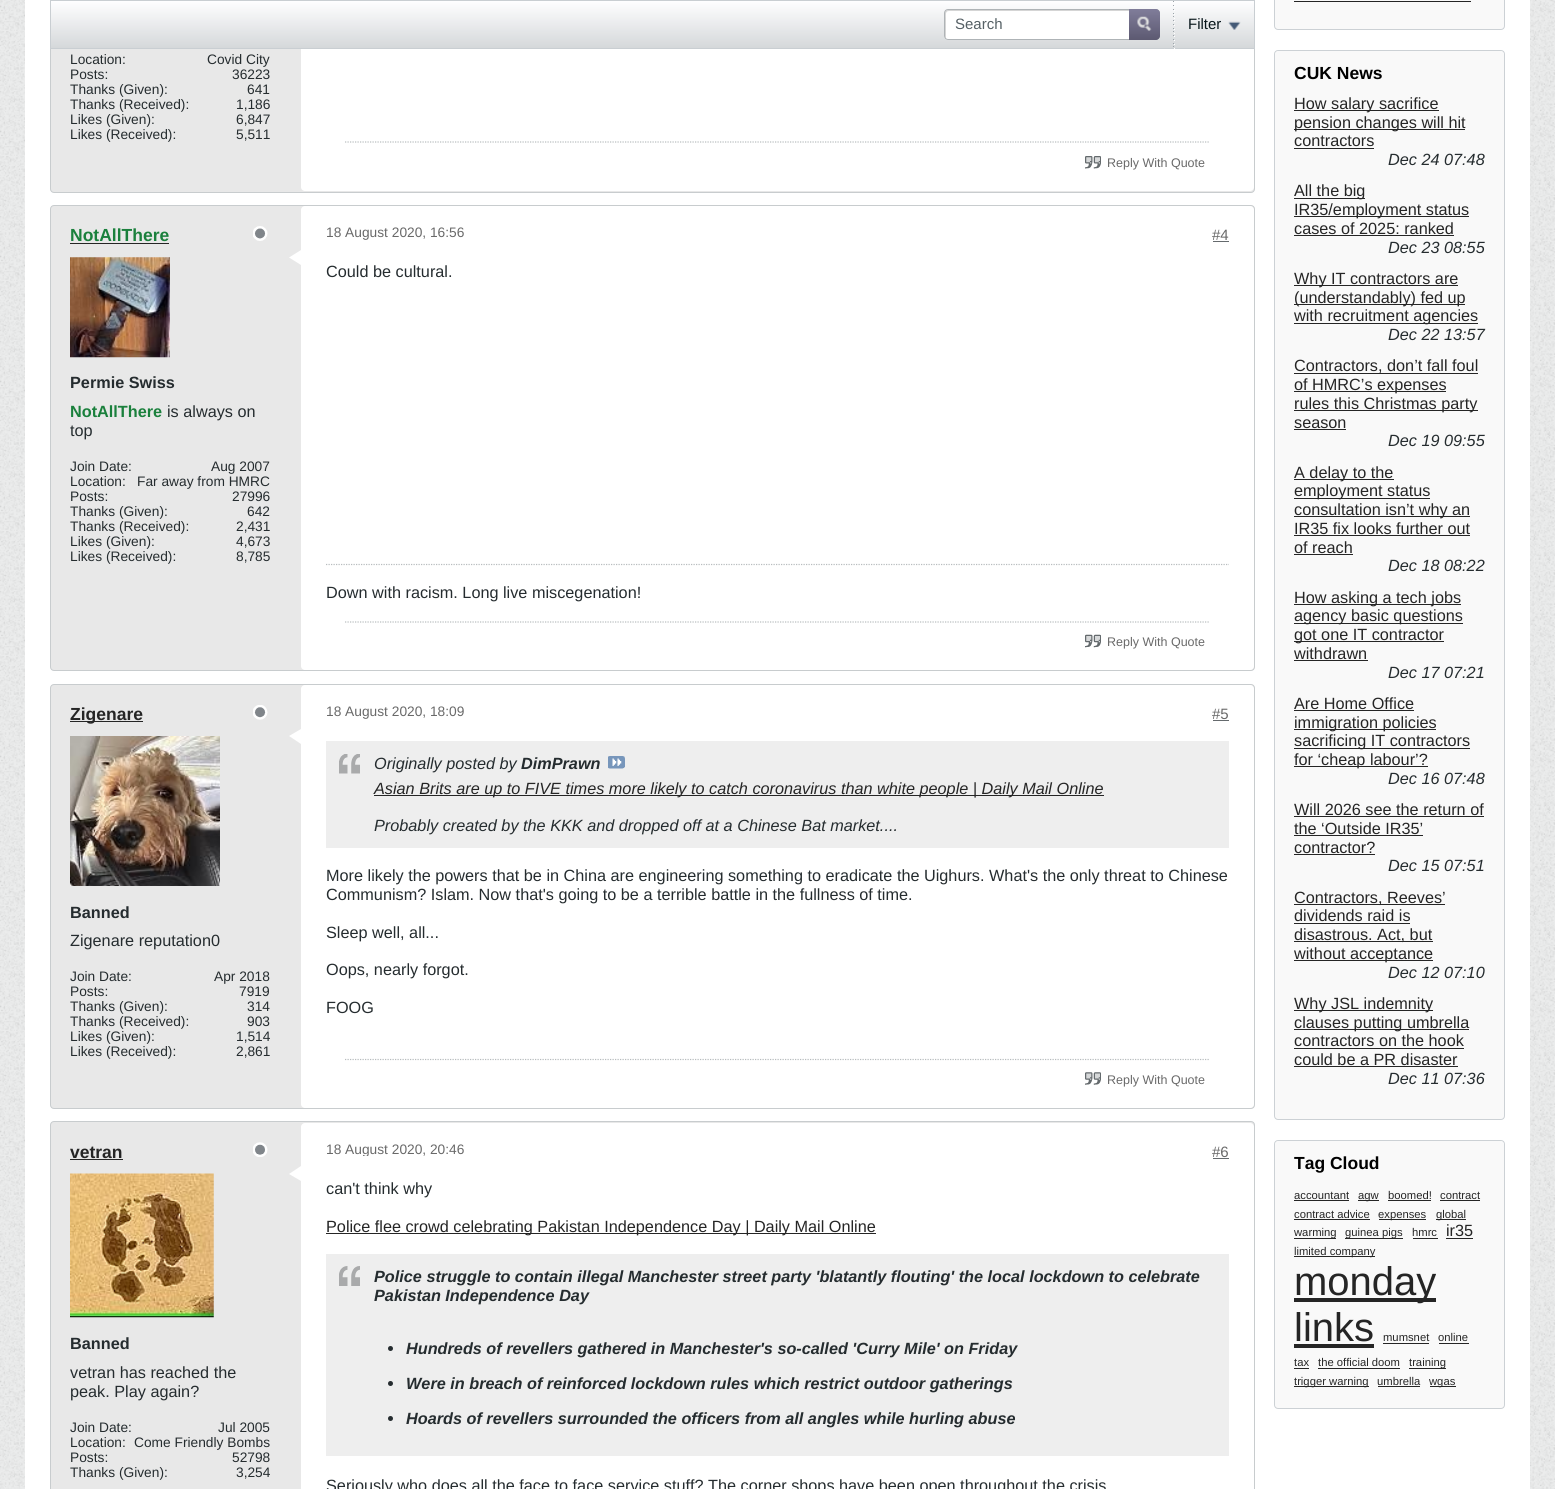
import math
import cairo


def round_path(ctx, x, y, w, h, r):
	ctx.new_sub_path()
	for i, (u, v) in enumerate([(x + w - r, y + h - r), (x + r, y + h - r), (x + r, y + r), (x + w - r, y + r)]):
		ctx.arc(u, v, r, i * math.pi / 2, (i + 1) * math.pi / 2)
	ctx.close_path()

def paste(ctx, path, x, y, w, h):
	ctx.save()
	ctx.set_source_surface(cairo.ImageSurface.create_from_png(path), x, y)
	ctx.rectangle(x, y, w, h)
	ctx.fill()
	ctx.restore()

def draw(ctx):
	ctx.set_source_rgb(0.918, 0.922, 0.925)
	ctx.paint()
	paste(ctx, 'media/1.png', 0, 0, 1555, 1489)
	ctx.set_source_rgb(1, 1, 1)
	ctx.rectangle(25, 0, 1505, 1489)
	ctx.fill()
	ctx.set_source_rgb(0.91, 0.91, 0.91)
	round_path(ctx, 50.5, -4.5, 1204, 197, 3.5)
	ctx.fill_preserve()
	ctx.set_source_rgb(0.784, 0.8, 0.808)
	ctx.set_line_width(1)
	ctx.stroke()
	ctx.set_source_rgb(1, 1, 1)
	round_path(ctx, 301, -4, 953, 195, 4)
	ctx.fill()
	gradient = cairo.LinearGradient(653, 1.2, 653, 48)
	gradient.add_color_stop_rgba(0, 0.996, 0.996, 1, 1)
	gradient.add_color_stop_rgba(1, 0.835, 0.847, 0.855, 1)
	ctx.set_source(gradient)
	ctx.rectangle(51, 1, 1203, 47)
	ctx.fill()
	ctx.rectangle(50.5, 0.5, 1204, 48)
	ctx.set_source_rgb(0.788, 0.808, 0.824)
	ctx.stroke()
	ctx.set_source_rgb(1, 1, 1)
	round_path(ctx, 944, 9, 216, 31, 4)
	ctx.fill()
	ctx.set_source_rgb(0.835, 0.835, 0.835)
	ctx.new_path()
	ctx.move_to(949, 11)
	ctx.line_to(1159, 11)
	ctx.curve_to(1158, 10, 1157, 10, 1156, 10)
	ctx.line_to(948, 10)
	ctx.curve_to(946, 10, 945, 11, 945, 12)
	ctx.line_to(945, 36)
	ctx.curve_to(945, 37, 945, 38, 946, 39)
	ctx.line_to(946, 18)
	ctx.curve_to(946, 15, 945, 11, 949, 11)
	ctx.close_path()
	ctx.fill()
	round_path(ctx, 944.5, 9.5, 215, 30, 3.5)
	ctx.set_source_rgb(0.682, 0.702, 0.714)
	ctx.stroke()
	ctx.select_font_face('Liberation Sans')
	ctx.set_font_size(15)
	ctx.set_source_rgb(0.333, 0.376, 0.396)
	ctx.move_to(955, 29)
	ctx.show_text('Search')
	gradient = cairo.LinearGradient(1144, 9, 1144, 40)
	gradient.add_color_stop_rgba(0, 0.502, 0.49, 0.604, 1)
	gradient.add_color_stop_rgba(1, 0.361, 0.349, 0.443, 1)
	ctx.set_source(gradient)
	ctx.new_path()
	ctx.move_to(1129, 9)
	ctx.line_to(1156, 9)
	ctx.curve_to(1158, 9, 1160, 11, 1160, 13)
	ctx.line_to(1160, 36)
	ctx.curve_to(1160, 38, 1158, 40, 1156, 40)
	ctx.line_to(1129, 40)
	ctx.close_path()
	ctx.fill()
	paste(ctx, 'media/2.png', 1137, 16, 15, 15)
	paste(ctx, 'media/3.png', 1173, 1, 1, 46)
	paste(ctx, 'media/4.png', 1174, 6, 1, 43)
	ctx.set_source_rgb(0.035, 0.086, 0.106)
	ctx.move_to(1188, 29)
	ctx.show_text('Filter')
	paste(ctx, 'media/5.png', 1228, 21, 13, 9)
	ctx.set_font_size(13.75)
	ctx.set_source_rgb(0.145, 0.173, 0.184)
	for x, y, s in [
		(70, 64, 'Location:'),
		(207, 64, 'Covid City'),
		(70, 79, 'Posts:'),
		(232, 79, '36223'),
		(70, 94, 'Thanks (Given):'),
		(247, 94, '641'),
		(70, 109, 'Thanks (Received):'),
		(236, 109, '1,186'),
		(70, 124, 'Likes (Given):'),
		(236, 124, '6,847'),
		(70, 139, 'Likes (Received):'),
		(236, 139, '5,511'),
	]:
		ctx.move_to(x, y)
		ctx.show_text(s)
	ctx.new_path()
	ctx.move_to(345, 142)
	ctx.line_to(1210, 142)
	ctx.set_source_rgb(0.718, 0.737, 0.745)
	ctx.set_line_width(1.2)
	ctx.set_dash([1.25, 1.25])
	ctx.stroke()
	paste(ctx, 'media/6.png', 1085, 156, 16, 13)
	ctx.set_font_size(12.5)
	ctx.set_source_rgb(0.412, 0.412, 0.412)
	ctx.move_to(1107, 167)
	ctx.show_text('Reply With Quote')
	ctx.set_source_rgb(0.91, 0.91, 0.91)
	round_path(ctx, 50.5, 205.5, 1204, 465, 3.5)
	ctx.fill_preserve()
	ctx.set_source_rgb(0.784, 0.8, 0.808)
	ctx.set_line_width(1)
	ctx.set_dash([])
	ctx.stroke()
	ctx.select_font_face('Liberation Sans', cairo.FONT_SLANT_NORMAL, cairo.FONT_WEIGHT_BOLD)
	ctx.set_font_size(17.5)
	ctx.set_source_rgb(0.102, 0.502, 0.235)
	ctx.move_to(70, 241)
	ctx.show_text('NotAllThere')
	ctx.set_source_rgb(0.145, 0.145, 0.145)
	ctx.rectangle(70, 243, 99, 1)
	ctx.fill()
	paste(ctx, 'media/7.png', 253, 226, 15, 15)
	paste(ctx, 'media/8.png', 70, 257, 100, 101)
	ctx.set_font_size(16.25)
	ctx.set_source_rgb(0.145, 0.173, 0.184)
	ctx.move_to(70, 388)
	ctx.show_text('Permie Swiss')
	ctx.set_source_rgb(0.102, 0.502, 0.235)
	ctx.move_to(70, 417)
	ctx.show_text('NotAllThere')
	ctx.select_font_face('Liberation Sans')
	ctx.set_source_rgb(0.145, 0.173, 0.184)
	ctx.move_to(167, 417)
	ctx.show_text('is always on')
	ctx.move_to(70, 436)
	ctx.show_text('top')
	ctx.set_font_size(13.75)
	for x, y, s in [
		(70, 471, 'Join Date:'),
		(211, 471, 'Aug 2007'),
		(70, 486, 'Location:'),
		(137, 486, 'Far away from HMRC'),
		(70, 501, 'Posts:'),
		(232, 501, '27996'),
		(70, 516, 'Thanks (Given):'),
		(247, 516, '642'),
		(70, 531, 'Thanks (Received):'),
		(236, 531, '2,431'),
		(70, 546, 'Likes (Given):'),
		(236, 546, '4,673'),
		(70, 561, 'Likes (Received):'),
		(236, 561, '8,785'),
	]:
		ctx.move_to(x, y)
		ctx.show_text(s)
	ctx.set_source_rgb(1, 1, 1)
	round_path(ctx, 301, 206, 953, 464, 4)
	ctx.fill()
	ctx.new_path()
	ctx.move_to(301, 250)
	ctx.line_to(301, 265)
	ctx.line_to(289, 257.5)
	ctx.close_path()
	ctx.fill()
	ctx.set_source_rgb(0.412, 0.412, 0.412)
	ctx.move_to(326, 237)
	ctx.show_text('18 August 2020, 16:56')
	ctx.set_font_size(15)
	ctx.move_to(1212, 240)
	ctx.show_text('#4')
	ctx.set_source_rgb(0.396, 0.416, 0.427)
	ctx.rectangle(1213, 241, 16, 1)
	ctx.fill()
	ctx.set_font_size(16.25)
	ctx.set_source_rgb(0.145, 0.173, 0.184)
	ctx.move_to(326, 277)
	ctx.show_text('Could be cultural.')
	ctx.new_path()
	ctx.move_to(326, 564.5)
	ctx.line_to(1229, 564.5)
	ctx.set_source_rgb(0.718, 0.737, 0.745)
	ctx.set_line_width(1.2)
	ctx.set_dash([1.25, 1.25])
	ctx.stroke()
	ctx.set_source_rgb(0.145, 0.173, 0.184)
	ctx.move_to(326, 598)
	ctx.show_text('Down with racism. Long live miscegenation!')
	ctx.new_path()
	ctx.move_to(345, 622)
	ctx.line_to(1210, 622)
	ctx.set_source_rgb(0.718, 0.737, 0.745)
	ctx.stroke()
	paste(ctx, 'media/9.png', 1085, 634, 16, 14)
	ctx.set_font_size(12.5)
	ctx.set_source_rgb(0.412, 0.412, 0.412)
	ctx.move_to(1107, 646)
	ctx.show_text('Reply With Quote')
	ctx.set_source_rgb(0.91, 0.91, 0.91)
	round_path(ctx, 50.5, 684.5, 1204, 424, 3.5)
	ctx.fill_preserve()
	ctx.set_source_rgb(0.784, 0.8, 0.808)
	ctx.set_line_width(1)
	ctx.set_dash([])
	ctx.stroke()
	ctx.set_source_rgb(0.145, 0.145, 0.145)
	ctx.rectangle(70, 721, 73, 1)
	ctx.fill()
	ctx.select_font_face('Liberation Sans', cairo.FONT_SLANT_NORMAL, cairo.FONT_WEIGHT_BOLD)
	ctx.set_font_size(17.5)
	ctx.move_to(70, 720)
	ctx.show_text('Zigenare')
	paste(ctx, 'media/10.png', 253, 705, 15, 15)
	paste(ctx, 'media/11.png', 70, 736, 150, 150)
	ctx.set_font_size(16.25)
	ctx.set_source_rgb(0.145, 0.173, 0.184)
	ctx.move_to(70, 918)
	ctx.show_text('Banned')
	ctx.select_font_face('Liberation Sans')
	ctx.move_to(70, 946)
	ctx.show_text('Zigenare reputation0')
	ctx.set_font_size(13.75)
	for x, y, s in [
		(70, 981, 'Join Date:'),
		(214, 981, 'Apr 2018'),
		(70, 996, 'Posts:'),
		(239, 996, '7919'),
		(70, 1011, 'Thanks (Given):'),
		(247, 1011, '314'),
		(70, 1026, 'Thanks (Received):'),
		(247, 1026, '903'),
		(70, 1041, 'Likes (Given):'),
		(236, 1041, '1,514'),
		(70, 1056, 'Likes (Received):'),
		(236, 1056, '2,861'),
	]:
		ctx.move_to(x, y)
		ctx.show_text(s)
	ctx.set_source_rgb(1, 1, 1)
	round_path(ctx, 301, 685, 953, 423, 4)
	ctx.fill()
	ctx.new_path()
	ctx.move_to(301, 729)
	ctx.line_to(301, 744)
	ctx.line_to(289, 736)
	ctx.close_path()
	ctx.fill()
	ctx.set_source_rgb(0.412, 0.412, 0.412)
	ctx.move_to(326, 716)
	ctx.show_text('18 August 2020, 18:09')
	ctx.set_font_size(15)
	ctx.move_to(1212, 719)
	ctx.show_text('#5')
	ctx.set_source_rgb(0.396, 0.416, 0.427)
	ctx.rectangle(1213, 720, 16, 1)
	ctx.fill()
	ctx.set_source_rgb(0.933, 0.933, 0.933)
	ctx.rectangle(326, 741, 903, 107)
	ctx.fill()
	paste(ctx, 'media/12.png', 339, 754, 21, 20)
	ctx.select_font_face('Liberation Sans', cairo.FONT_SLANT_ITALIC)
	ctx.set_font_size(16.25)
	ctx.set_source_rgb(0.145, 0.173, 0.184)
	ctx.move_to(374, 769)
	ctx.show_text('Originally posted by')
	ctx.select_font_face('Liberation Sans', cairo.FONT_SLANT_ITALIC, cairo.FONT_WEIGHT_BOLD)
	ctx.move_to(521, 769)
	ctx.show_text('DimPrawn')
	paste(ctx, 'media/13.png', 608, 756, 17, 13)
	ctx.set_source_rgb(0.145, 0.145, 0.145)
	ctx.rectangle(374, 795, 730, 1)
	ctx.fill()
	ctx.select_font_face('Liberation Sans', cairo.FONT_SLANT_ITALIC)
	ctx.move_to(374, 794)
	ctx.show_text('Asian Brits are up to FIVE times more likely to catch coronavirus than white people | Daily Mail Online')
	ctx.set_source_rgb(0.145, 0.173, 0.184)
	ctx.move_to(374, 831)
	ctx.show_text('Probably created by the KKK and dropped off at a Chinese Bat market....')
	ctx.select_font_face('Liberation Sans')
	for x, y, s in [
		(326, 881, 'More likely the powers that be in China are engineering something to eradicate the Uighurs. What\'s the only threat to Chinese'),
		(326, 900, 'Communism? Islam. Now that\'s going to be a terrible battle in the fullness of time.'),
		(326, 938, 'Sleep well, all...'),
		(326, 975, 'Oops, nearly forgot.'),
		(326, 1013, 'FOOG'),
	]:
		ctx.move_to(x, y)
		ctx.show_text(s)
	ctx.new_path()
	ctx.move_to(345, 1059.5)
	ctx.line_to(1210, 1059.5)
	ctx.set_source_rgb(0.718, 0.737, 0.745)
	ctx.set_line_width(1.2)
	ctx.set_dash([1.25, 1.25])
	ctx.stroke()
	paste(ctx, 'media/14.png', 1085, 1072, 16, 13)
	ctx.set_font_size(12.5)
	ctx.set_source_rgb(0.412, 0.412, 0.412)
	ctx.move_to(1107, 1084)
	ctx.show_text('Reply With Quote')
	ctx.set_source_rgb(0.91, 0.91, 0.91)
	round_path(ctx, 50.5, 1121.5, 1204, 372, 3.5)
	ctx.fill_preserve()
	ctx.set_source_rgb(0.784, 0.8, 0.808)
	ctx.set_line_width(1)
	ctx.set_dash([])
	ctx.stroke()
	ctx.select_font_face('Liberation Sans', cairo.FONT_SLANT_NORMAL, cairo.FONT_WEIGHT_BOLD)
	ctx.set_font_size(17.5)
	ctx.set_source_rgb(0.145, 0.145, 0.145)
	ctx.move_to(70, 1158)
	ctx.show_text('vetran')
	ctx.rectangle(70, 1159, 53, 1)
	ctx.fill()
	paste(ctx, 'media/15.png', 253, 1142, 15, 15)
	paste(ctx, 'media/16.png', 70, 1173, 144, 145)
	ctx.set_font_size(16.25)
	ctx.set_source_rgb(0.145, 0.173, 0.184)
	ctx.move_to(70, 1349)
	ctx.show_text('Banned')
	ctx.select_font_face('Liberation Sans')
	ctx.move_to(70, 1378)
	ctx.show_text('vetran has reached the')
	ctx.move_to(70, 1397)
	ctx.show_text('peak. Play again?')
	ctx.set_font_size(13.75)
	for x, y, s in [
		(70, 1432, 'Join Date:'),
		(218, 1432, 'Jul 2005'),
		(70, 1447, 'Location:'),
		(134, 1447, 'Come Friendly Bombs'),
		(70, 1462, 'Posts:'),
		(232, 1462, '52798'),
		(70, 1477, 'Thanks (Given):'),
		(236, 1477, '3,254'),
	]:
		ctx.move_to(x, y)
		ctx.show_text(s)
	ctx.set_source_rgb(1, 1, 1)
	round_path(ctx, 301, 1123, 953, 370, 4)
	ctx.fill()
	ctx.new_path()
	ctx.move_to(301, 1166)
	ctx.line_to(301, 1181)
	ctx.line_to(289, 1174)
	ctx.close_path()
	ctx.fill()
	ctx.save()
	ctx.rectangle(326, 1141, 887, 15)
	ctx.clip()
	ctx.set_source_rgb(0.412, 0.412, 0.412)
	ctx.move_to(326, 1154)
	ctx.show_text('18 August 2020, 20:46')
	ctx.restore()
	ctx.set_font_size(15)
	ctx.set_source_rgb(0.412, 0.412, 0.412)
	ctx.move_to(1212, 1157)
	ctx.show_text('#6')
	ctx.set_source_rgb(0.396, 0.416, 0.427)
	ctx.rectangle(1213, 1158, 16, 1)
	ctx.fill()
	ctx.set_font_size(16.25)
	ctx.set_source_rgb(0.145, 0.173, 0.184)
	ctx.move_to(326, 1194)
	ctx.show_text('can\'t think why')
	ctx.set_source_rgb(0.145, 0.145, 0.145)
	ctx.rectangle(326, 1233, 550, 1)
	ctx.fill()
	ctx.move_to(326, 1232)
	ctx.show_text('Police flee crowd celebrating Pakistan Independence Day | Daily Mail Online')
	ctx.set_source_rgb(0.933, 0.933, 0.933)
	ctx.rectangle(326, 1254, 903, 202)
	ctx.fill()
	paste(ctx, 'media/17.png', 339, 1266, 21, 20)
	ctx.select_font_face('Liberation Sans', cairo.FONT_SLANT_ITALIC, cairo.FONT_WEIGHT_BOLD)
	ctx.set_source_rgb(0.145, 0.173, 0.184)
	ctx.move_to(374, 1282)
	ctx.show_text('Police struggle to contain illegal Manchester street party \'blatantly flouting\' the local lockdown to celebrate')
	ctx.move_to(374, 1301)
	ctx.show_text('Pakistan Independence Day')
	ctx.new_path()
	ctx.arc(390.5, 1348.5, 2.5, 0, 2 * math.pi)
	ctx.fill()
	ctx.move_to(406, 1354)
	ctx.show_text('Hundreds of revellers gathered in Manchester\'s so-called \'Curry Mile\' on Friday')
	ctx.new_path()
	ctx.arc(390.5, 1383.5, 2.5, 0, 2 * math.pi)
	ctx.fill()
	ctx.move_to(406, 1389)
	ctx.show_text('Were in breach of reinforced lockdown rules which restrict outdoor gatherings')
	ctx.new_path()
	ctx.arc(390.5, 1418.5, 2.5, 0, 2 * math.pi)
	ctx.fill()
	ctx.move_to(406, 1424)
	ctx.show_text('Hoards of revellers surrounded the officers from all angles while hurling abuse')
	ctx.select_font_face('Liberation Sans')
	ctx.move_to(326, 1491)
	ctx.show_text('Seriously who does all the face to face service stuff? The corner shops have been open throughout the crisis')
	ctx.set_source_rgb(0.973, 0.973, 0.973)
	round_path(ctx, 1274.5, -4.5, 230, 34, 3.5)
	ctx.fill_preserve()
	ctx.set_source_rgb(0.8, 0.82, 0.835)
	ctx.stroke()
	ctx.set_source_rgb(0.145, 0.145, 0.145)
	ctx.rectangle(1294, 1, 177, 1)
	ctx.fill()
	ctx.set_source_rgb(0.973, 0.973, 0.973)
	round_path(ctx, 1274.5, 50.5, 230, 1069, 3.5)
	ctx.fill_preserve()
	ctx.set_source_rgb(0.8, 0.82, 0.835)
	ctx.stroke()
	ctx.set_source_rgb(0.973, 0.973, 0.973)
	round_path(ctx, 1275, 51, 229, 43, 4)
	ctx.fill()
	ctx.select_font_face('Liberation Sans', cairo.FONT_SLANT_NORMAL, cairo.FONT_WEIGHT_BOLD)
	ctx.set_font_size(17.5)
	ctx.set_source_rgb(0, 0, 0)
	ctx.move_to(1294, 79)
	ctx.show_text('CUK News')
	ctx.set_source_rgb(0.145, 0.145, 0.145)
	ctx.rectangle(1294, 110, 145, 1)
	ctx.fill()
	ctx.select_font_face('Liberation Sans')
	ctx.set_font_size(16.25)
	ctx.move_to(1294, 109)
	ctx.show_text('How salary sacrifice')
	ctx.rectangle(1294, 129, 171, 1)
	ctx.fill()
	ctx.move_to(1294, 128)
	ctx.show_text('pension changes will hit')
	ctx.move_to(1294, 146)
	ctx.show_text('contractors')
	ctx.rectangle(1294, 148, 80, 1)
	ctx.fill()
	ctx.select_font_face('Liberation Sans', cairo.FONT_SLANT_ITALIC)
	ctx.set_source_rgb(0.145, 0.173, 0.184)
	ctx.move_to(1388, 165)
	ctx.show_text('Dec 24 07:48')
	ctx.set_source_rgb(0.145, 0.145, 0.145)
	ctx.rectangle(1294, 198, 71, 1)
	ctx.fill()
	ctx.select_font_face('Liberation Sans')
	ctx.move_to(1294, 196)
	ctx.show_text('All the big')
	ctx.rectangle(1294, 216, 175, 1)
	ctx.fill()
	ctx.move_to(1294, 215)
	ctx.show_text('IR35/employment status')
	ctx.move_to(1294, 234)
	ctx.show_text('cases of 2025: ranked')
	ctx.rectangle(1294, 235, 160, 1)
	ctx.fill()
	ctx.select_font_face('Liberation Sans', cairo.FONT_SLANT_ITALIC)
	ctx.set_source_rgb(0.145, 0.173, 0.184)
	ctx.move_to(1388, 253)
	ctx.show_text('Dec 23 08:55')
	ctx.set_source_rgb(0.145, 0.145, 0.145)
	ctx.rectangle(1294, 285, 164, 1)
	ctx.fill()
	ctx.select_font_face('Liberation Sans')
	ctx.move_to(1294, 284)
	ctx.show_text('Why IT contractors are')
	ctx.rectangle(1294, 304, 171, 1)
	ctx.fill()
	ctx.move_to(1294, 303)
	ctx.show_text('(understandably) fed up')
	ctx.rectangle(1294, 323, 184, 1)
	ctx.fill()
	ctx.move_to(1294, 321)
	ctx.show_text('with recruitment agencies')
	ctx.select_font_face('Liberation Sans', cairo.FONT_SLANT_ITALIC)
	ctx.set_source_rgb(0.145, 0.173, 0.184)
	ctx.move_to(1388, 340)
	ctx.show_text('Dec 22 13:57')
	ctx.set_source_rgb(0.145, 0.145, 0.145)
	ctx.rectangle(1294, 373, 184, 1)
	ctx.fill()
	ctx.select_font_face('Liberation Sans')
	ctx.move_to(1294, 371)
	ctx.show_text('Contractors, don’t fall foul')
	ctx.rectangle(1294, 391, 152, 1)
	ctx.fill()
	ctx.move_to(1294, 390)
	ctx.show_text('of HMRC’s expenses')
	ctx.rectangle(1294, 410, 184, 1)
	ctx.fill()
	ctx.move_to(1294, 409)
	ctx.show_text('rules this Christmas party')
	ctx.move_to(1294, 428)
	ctx.show_text('season')
	ctx.rectangle(1294, 429, 52, 1)
	ctx.fill()
	ctx.select_font_face('Liberation Sans', cairo.FONT_SLANT_ITALIC)
	ctx.set_source_rgb(0.145, 0.173, 0.184)
	ctx.move_to(1388, 446)
	ctx.show_text('Dec 19 09:55')
	ctx.set_source_rgb(0.145, 0.145, 0.145)
	ctx.rectangle(1294, 479, 100, 1)
	ctx.fill()
	ctx.select_font_face('Liberation Sans')
	ctx.move_to(1294, 478)
	ctx.show_text('A delay to the')
	ctx.rectangle(1294, 498, 136, 1)
	ctx.fill()
	ctx.move_to(1294, 496)
	ctx.show_text('employment status')
	ctx.rectangle(1294, 516, 176, 1)
	ctx.fill()
	ctx.move_to(1294, 515)
	ctx.show_text('consultation isn’t why an')
	ctx.move_to(1294, 534)
	ctx.show_text('IR35 fix looks further out')
	ctx.rectangle(1294, 535, 176, 1)
	ctx.fill()
	ctx.move_to(1294, 553)
	ctx.show_text('of reach')
	ctx.rectangle(1294, 554, 59, 1)
	ctx.fill()
	ctx.select_font_face('Liberation Sans', cairo.FONT_SLANT_ITALIC)
	ctx.set_source_rgb(0.145, 0.173, 0.184)
	ctx.move_to(1388, 571)
	ctx.show_text('Dec 18 08:22')
	ctx.set_source_rgb(0.145, 0.145, 0.145)
	ctx.rectangle(1294, 604, 167, 1)
	ctx.fill()
	ctx.select_font_face('Liberation Sans')
	ctx.move_to(1294, 603)
	ctx.show_text('How asking a tech jobs')
	ctx.rectangle(1294, 623, 169, 1)
	ctx.fill()
	ctx.move_to(1294, 621)
	ctx.show_text('agency basic questions')
	ctx.rectangle(1294, 641, 150, 1)
	ctx.fill()
	ctx.move_to(1294, 640)
	ctx.show_text('got one IT contractor')
	ctx.move_to(1294, 659)
	ctx.show_text('withdrawn')
	ctx.rectangle(1294, 660, 74, 1)
	ctx.fill()
	ctx.select_font_face('Liberation Sans', cairo.FONT_SLANT_ITALIC)
	ctx.set_source_rgb(0.145, 0.173, 0.184)
	ctx.move_to(1388, 678)
	ctx.show_text('Dec 17 07:21')
	ctx.select_font_face('Liberation Sans')
	ctx.set_source_rgb(0.145, 0.145, 0.145)
	ctx.move_to(1294, 709)
	ctx.show_text('Are Home Office')
	ctx.rectangle(1294, 710, 120, 1)
	ctx.fill()
	ctx.rectangle(1294, 729, 142, 1)
	ctx.fill()
	ctx.move_to(1294, 728)
	ctx.show_text('immigration policies')
	ctx.rectangle(1294, 748, 176, 1)
	ctx.fill()
	ctx.move_to(1294, 746)
	ctx.show_text('sacrificing IT contractors')
	ctx.rectangle(1294, 766, 134, 1)
	ctx.fill()
	ctx.move_to(1294, 765)
	ctx.show_text('for ‘cheap labour’?')
	ctx.select_font_face('Liberation Sans', cairo.FONT_SLANT_ITALIC)
	ctx.set_source_rgb(0.145, 0.173, 0.184)
	ctx.move_to(1388, 784)
	ctx.show_text('Dec 16 07:48')
	ctx.select_font_face('Liberation Sans')
	ctx.set_source_rgb(0.145, 0.145, 0.145)
	ctx.move_to(1294, 815)
	ctx.show_text('Will 2026 see the return of')
	ctx.rectangle(1294, 816, 190, 1)
	ctx.fill()
	ctx.move_to(1294, 834)
	ctx.show_text('the ‘Outside IR35’')
	ctx.rectangle(1294, 835, 129, 1)
	ctx.fill()
	ctx.move_to(1294, 853)
	ctx.show_text('contractor?')
	ctx.rectangle(1294, 854, 81, 1)
	ctx.fill()
	ctx.select_font_face('Liberation Sans', cairo.FONT_SLANT_ITALIC)
	ctx.set_source_rgb(0.145, 0.173, 0.184)
	ctx.move_to(1388, 871)
	ctx.show_text('Dec 15 07:51')
	ctx.set_source_rgb(0.145, 0.145, 0.145)
	ctx.rectangle(1294, 904, 151, 1)
	ctx.fill()
	ctx.select_font_face('Liberation Sans')
	ctx.move_to(1294, 903)
	ctx.show_text('Contractors, Reeves’')
	ctx.move_to(1294, 921)
	ctx.show_text('dividends raid is')
	ctx.rectangle(1294, 923, 116, 1)
	ctx.fill()
	ctx.rectangle(1294, 941, 139, 1)
	ctx.fill()
	ctx.move_to(1294, 940)
	ctx.show_text('disastrous. Act, but')
	ctx.rectangle(1294, 960, 139, 1)
	ctx.fill()
	ctx.move_to(1294, 959)
	ctx.show_text('without acceptance')
	ctx.select_font_face('Liberation Sans', cairo.FONT_SLANT_ITALIC)
	ctx.set_source_rgb(0.145, 0.173, 0.184)
	ctx.move_to(1388, 978)
	ctx.show_text('Dec 12 07:10')
	ctx.set_source_rgb(0.145, 0.145, 0.145)
	ctx.rectangle(1294, 1010, 139, 1)
	ctx.fill()
	ctx.select_font_face('Liberation Sans')
	ctx.move_to(1294, 1009)
	ctx.show_text('Why JSL indemnity')
	ctx.rectangle(1294, 1029, 175, 1)
	ctx.fill()
	ctx.move_to(1294, 1028)
	ctx.show_text('clauses putting umbrella')
	ctx.move_to(1294, 1046)
	ctx.show_text('contractors on the hook')
	ctx.rectangle(1294, 1048, 170, 1)
	ctx.fill()
	ctx.move_to(1294, 1065)
	ctx.show_text('could be a PR disaster')
	ctx.rectangle(1294, 1066, 164, 1)
	ctx.fill()
	ctx.select_font_face('Liberation Sans', cairo.FONT_SLANT_ITALIC)
	ctx.set_source_rgb(0.145, 0.173, 0.184)
	ctx.move_to(1388, 1084)
	ctx.show_text('Dec 11 07:36')
	ctx.set_source_rgb(0.973, 0.973, 0.973)
	round_path(ctx, 1274.5, 1140.5, 230, 268, 3.5)
	ctx.fill_preserve()
	ctx.set_source_rgb(0.8, 0.82, 0.835)
	ctx.stroke()
	ctx.set_source_rgb(0.973, 0.973, 0.973)
	round_path(ctx, 1275, 1141, 229, 43, 4)
	ctx.fill()
	ctx.select_font_face('Liberation Sans', cairo.FONT_SLANT_NORMAL, cairo.FONT_WEIGHT_BOLD)
	ctx.set_font_size(17.5)
	ctx.set_source_rgb(0, 0, 0)
	ctx.move_to(1294, 1169)
	ctx.show_text('Tag Cloud')
	ctx.select_font_face('Liberation Sans')
	ctx.set_font_size(11.25)
	ctx.set_source_rgb(0.145, 0.145, 0.145)
	ctx.move_to(1294, 1199)
	ctx.show_text('accountant')
	ctx.rectangle(1294, 1200, 55, 1)
	ctx.fill()
	ctx.rectangle(1358, 1200, 21, 1)
	ctx.fill()
	ctx.move_to(1358, 1199)
	ctx.show_text('agw')
	ctx.move_to(1388, 1199)
	ctx.show_text('boomed!')
	ctx.rectangle(1388, 1200, 43, 1)
	ctx.fill()
	ctx.move_to(1440, 1199)
	ctx.show_text('contract')
	ctx.rectangle(1440, 1200, 40, 1)
	ctx.fill()
	ctx.move_to(1294, 1218)
	ctx.show_text('contract advice')
	ctx.rectangle(1294, 1219, 76, 1)
	ctx.fill()
	ctx.rectangle(1379, 1219, 47, 1)
	ctx.fill()
	ctx.move_to(1378, 1218)
	ctx.show_text('expenses')
	ctx.rectangle(1436, 1219, 30, 1)
	ctx.fill()
	ctx.move_to(1436, 1218)
	ctx.show_text('global')
	ctx.rectangle(1294, 1238, 42, 1)
	ctx.fill()
	ctx.move_to(1294, 1236)
	ctx.show_text('warming')
	ctx.rectangle(1345, 1238, 58, 1)
	ctx.fill()
	ctx.move_to(1345, 1236)
	ctx.show_text('guinea pigs')
	ctx.move_to(1412, 1236)
	ctx.show_text('hmrc')
	ctx.rectangle(1413, 1238, 25, 1)
	ctx.fill()
	ctx.set_font_size(16.25)
	ctx.move_to(1446, 1236)
	ctx.show_text('ir35')
	ctx.rectangle(1446, 1238, 27, 1)
	ctx.fill()
	ctx.rectangle(1294, 1256, 81, 1)
	ctx.fill()
	ctx.set_font_size(11.25)
	ctx.move_to(1294, 1255)
	ctx.show_text('limited company')
	ctx.rectangle(1294, 1298, 142, 4)
	ctx.fill()
	ctx.set_font_size(40)
	ctx.move_to(1294, 1295)
	ctx.show_text('monday')
	ctx.move_to(1294, 1341)
	ctx.show_text('links')
	ctx.rectangle(1294, 1344, 80, 4)
	ctx.fill()
	ctx.set_font_size(11.25)
	ctx.move_to(1383, 1341)
	ctx.show_text('mumsnet')
	ctx.rectangle(1383, 1343, 46, 1)
	ctx.fill()
	ctx.move_to(1438, 1341)
	ctx.show_text('online')
	ctx.rectangle(1439, 1343, 30, 1)
	ctx.fill()
	ctx.move_to(1294, 1366)
	ctx.show_text('tax')
	ctx.rectangle(1294, 1368, 15, 1)
	ctx.fill()
	ctx.move_to(1318, 1366)
	ctx.show_text('the official doom')
	ctx.rectangle(1318, 1368, 82, 1)
	ctx.fill()
	ctx.rectangle(1409, 1368, 37, 1)
	ctx.fill()
	ctx.move_to(1409, 1366)
	ctx.show_text('training')
	ctx.rectangle(1294, 1386, 75, 1)
	ctx.fill()
	ctx.move_to(1294, 1385)
	ctx.show_text('trigger warning')
	ctx.move_to(1377, 1385)
	ctx.show_text('umbrella')
	ctx.rectangle(1378, 1386, 42, 1)
	ctx.fill()
	ctx.rectangle(1430, 1386, 26, 1)
	ctx.fill()
	ctx.move_to(1429, 1385)
	ctx.show_text('wgas')


surface = cairo.ImageSurface(cairo.FORMAT_RGB24, 1555, 1489)
ctx = cairo.Context(surface)
options = cairo.FontOptions()
options.set_hint_metrics(cairo.HINT_METRICS_OFF)
options.set_hint_style(cairo.HINT_STYLE_NONE)
ctx.set_font_options(options)
ctx.set_miter_limit(4)
draw(ctx)
surface.write_to_png('image.png')
